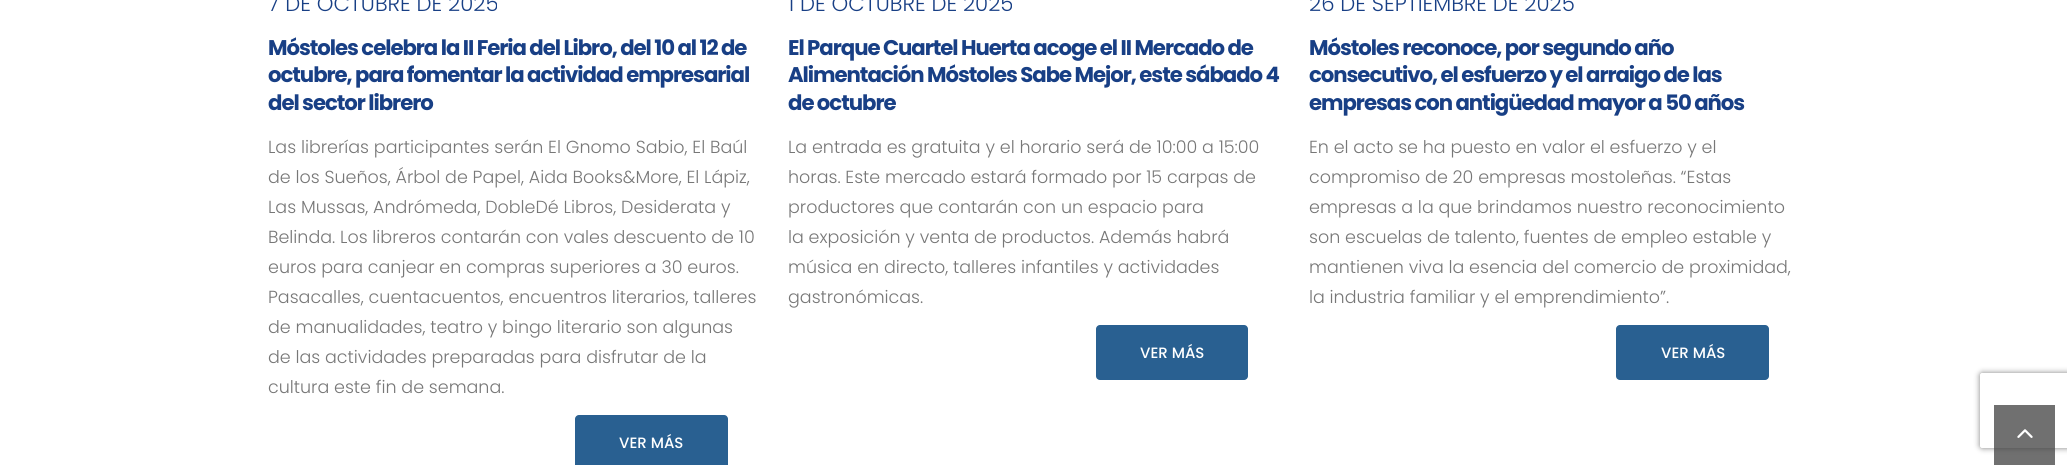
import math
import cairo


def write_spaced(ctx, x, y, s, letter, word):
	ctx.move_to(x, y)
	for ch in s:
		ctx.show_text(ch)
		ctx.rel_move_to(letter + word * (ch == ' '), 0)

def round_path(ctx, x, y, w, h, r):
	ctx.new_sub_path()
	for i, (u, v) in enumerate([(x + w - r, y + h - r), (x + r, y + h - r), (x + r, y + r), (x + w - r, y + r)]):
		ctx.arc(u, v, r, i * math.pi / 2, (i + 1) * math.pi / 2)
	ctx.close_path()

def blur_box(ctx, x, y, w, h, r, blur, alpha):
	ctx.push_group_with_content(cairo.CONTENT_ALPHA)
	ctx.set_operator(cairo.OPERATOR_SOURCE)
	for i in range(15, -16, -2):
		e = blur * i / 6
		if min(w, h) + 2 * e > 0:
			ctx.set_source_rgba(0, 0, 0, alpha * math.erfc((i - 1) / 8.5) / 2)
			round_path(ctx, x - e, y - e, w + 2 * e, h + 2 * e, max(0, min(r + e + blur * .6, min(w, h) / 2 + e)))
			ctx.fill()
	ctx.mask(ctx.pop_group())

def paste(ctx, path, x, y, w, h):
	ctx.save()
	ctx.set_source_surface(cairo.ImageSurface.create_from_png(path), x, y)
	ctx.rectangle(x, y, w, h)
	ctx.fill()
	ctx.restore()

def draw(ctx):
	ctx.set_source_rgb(1, 1, 1)
	ctx.paint()
	ctx.select_font_face('Poppins Light')
	ctx.set_font_size(21.25)
	ctx.set_source_rgb(0.094, 0.247, 0.522)
	ctx.move_to(268, 11)
	ctx.show_text('7 DE OCTUBRE DE 2025')
	ctx.select_font_face('Poppins', cairo.FONT_SLANT_NORMAL, cairo.FONT_WEIGHT_BOLD)
	for x, y, s in [
		(268, 55, 'Móstoles celebra la II Feria del Libro, del 10 al 12 de'),
		(268, 82, 'octubre, para fomentar la actividad empresarial'),
		(268, 110, 'del sector librero'),
	]:
		write_spaced(ctx, x, y, s, -1.05, 0)
	ctx.select_font_face('Poppins Light')
	ctx.set_font_size(17.5)
	ctx.set_source_rgb(0.467, 0.467, 0.467)
	for x, y, s in [
		(268, 153, 'Las librerías participantes serán El Gnomo Sabio, El Baúl'),
		(268, 183, 'de los Sueños, Árbol de Papel, Aida Books&More, El Lápiz,'),
		(268, 213, 'Las Mussas, Andrómeda, DobleDé Libros, Desiderata y'),
		(268, 243, 'Belinda. Los libreros contarán con vales descuento de 10'),
		(268, 273, 'euros para canjear en compras superiores a 30 euros.'),
		(268, 303, 'Pasacalles, cuentacuentos, encuentros literarios, talleres'),
		(268, 333, 'de manualidades, teatro y bingo literario son algunas'),
		(268, 363, 'de las actividades preparadas para disfrutar de la'),
		(268, 393, 'cultura este fin de semana.'),
	]:
		ctx.move_to(x, y)
		ctx.show_text(s)
	ctx.set_source_rgb(0.161, 0.376, 0.569)
	round_path(ctx, 575, 415, 153, 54, 4)
	ctx.fill()
	ctx.select_font_face('Poppins Medium')
	ctx.set_font_size(15)
	ctx.set_source_rgb(1, 1, 1)
	ctx.move_to(619, 448)
	ctx.show_text('VER MÁS')
	ctx.select_font_face('Poppins Light')
	ctx.set_font_size(21.25)
	ctx.set_source_rgb(0.094, 0.247, 0.522)
	ctx.move_to(788, 11)
	ctx.show_text('1 DE OCTUBRE DE 2025')
	ctx.select_font_face('Poppins', cairo.FONT_SLANT_NORMAL, cairo.FONT_WEIGHT_BOLD)
	for x, y, s in [
		(788, 55, 'El Parque Cuartel Huerta acoge el II Mercado de'),
		(788, 82, 'Alimentación Móstoles Sabe Mejor, este sábado 4'),
		(788, 110, 'de octubre'),
	]:
		write_spaced(ctx, x, y, s, -1.05, 0)
	ctx.select_font_face('Poppins Light')
	ctx.set_font_size(17.5)
	ctx.set_source_rgb(0.467, 0.467, 0.467)
	for x, y, s in [
		(788, 153, 'La entrada es gratuita y el horario será de 10:00 a 15:00'),
		(788, 183, 'horas. Este mercado estará formado por 15 carpas de'),
		(788, 213, 'productores que contarán con un espacio para'),
		(788, 243, 'la exposición y venta de productos. Además habrá'),
		(788, 273, 'música en directo, talleres infantiles y actividades'),
		(788, 303, 'gastronómicas.'),
	]:
		ctx.move_to(x, y)
		ctx.show_text(s)
	ctx.set_source_rgb(0.161, 0.376, 0.569)
	round_path(ctx, 1096, 325, 152, 55, 4)
	ctx.fill()
	ctx.select_font_face('Poppins Medium')
	ctx.set_font_size(15)
	ctx.set_source_rgb(1, 1, 1)
	ctx.move_to(1140, 358)
	ctx.show_text('VER MÁS')
	ctx.select_font_face('Poppins Light')
	ctx.set_font_size(21.25)
	ctx.set_source_rgb(0.094, 0.247, 0.522)
	ctx.move_to(1309, 11)
	ctx.show_text('26 DE SEPTIEMBRE DE 2025')
	ctx.select_font_face('Poppins', cairo.FONT_SLANT_NORMAL, cairo.FONT_WEIGHT_BOLD)
	for x, y, s in [
		(1309, 55, 'Móstoles reconoce, por segundo año'),
		(1309, 82, 'consecutivo, el esfuerzo y el arraigo de las'),
		(1309, 110, 'empresas con antigüedad mayor a 50 años'),
	]:
		write_spaced(ctx, x, y, s, -1.05, 0)
	ctx.select_font_face('Poppins Light')
	ctx.set_font_size(17.5)
	ctx.set_source_rgb(0.467, 0.467, 0.467)
	for x, y, s in [
		(1309, 153, 'En el acto se ha puesto en valor el esfuerzo y el'),
		(1309, 183, 'compromiso de 20 empresas mostoleñas. “Estas'),
		(1309, 213, 'empresas a la que brindamos nuestro reconocimiento'),
		(1309, 243, 'son escuelas de talento, fuentes de empleo estable y'),
		(1309, 273, 'mantienen viva la esencia del comercio de proximidad,'),
		(1309, 303, 'la industria familiar y el emprendimiento”.'),
	]:
		ctx.move_to(x, y)
		ctx.show_text(s)
	ctx.set_source_rgb(0.161, 0.376, 0.569)
	round_path(ctx, 1616, 325, 153, 55, 4)
	ctx.fill()
	ctx.select_font_face('Poppins Medium')
	ctx.set_font_size(15)
	ctx.set_source_rgb(1, 1, 1)
	ctx.move_to(1661, 358)
	ctx.show_text('VER MÁS')
	ctx.save()
	ctx.set_fill_rule(cairo.FILL_RULE_EVEN_ODD)
	ctx.new_path()
	ctx.move_to(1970, 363)
	ctx.line_to(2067, 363)
	ctx.line_to(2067, 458)
	ctx.line_to(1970, 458)
	ctx.close_path()
	ctx.move_to(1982.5, 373)
	ctx.line_to(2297.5, 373)
	ctx.curve_to(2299, 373, 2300, 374, 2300, 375.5)
	ctx.line_to(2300, 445.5)
	ctx.curve_to(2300, 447, 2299, 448, 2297.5, 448)
	ctx.line_to(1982.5, 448)
	ctx.curve_to(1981, 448, 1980, 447, 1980, 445.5)
	ctx.line_to(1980, 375.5)
	ctx.curve_to(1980, 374, 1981, 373, 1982.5, 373)
	ctx.close_path()
	ctx.clip()
	ctx.set_source_rgb(0.502, 0.502, 0.502)
	blur_box(ctx, 1980, 373, 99, 75, 2.5, 3, 1)
	ctx.restore()
	ctx.set_source_rgba(0.251, 0.251, 0.251, 0.75)
	ctx.rectangle(1994, 405, 61, 60)
	ctx.fill()
	paste(ctx, 'media/1.png', 2017, 429, 16, 9)


surface = cairo.ImageSurface(cairo.FORMAT_RGB24, 2067, 465)
ctx = cairo.Context(surface)
options = cairo.FontOptions()
options.set_hint_metrics(cairo.HINT_METRICS_OFF)
options.set_hint_style(cairo.HINT_STYLE_NONE)
ctx.set_font_options(options)
ctx.set_miter_limit(4)
draw(ctx)
surface.write_to_png('image.png')
